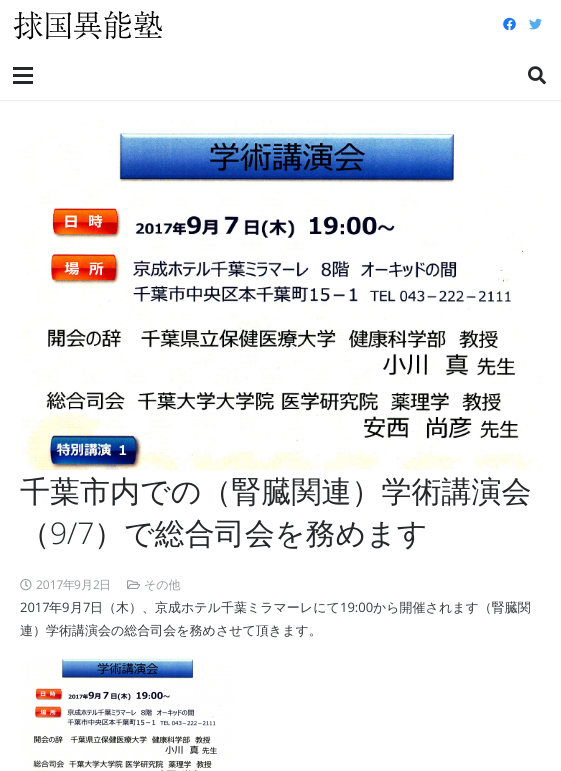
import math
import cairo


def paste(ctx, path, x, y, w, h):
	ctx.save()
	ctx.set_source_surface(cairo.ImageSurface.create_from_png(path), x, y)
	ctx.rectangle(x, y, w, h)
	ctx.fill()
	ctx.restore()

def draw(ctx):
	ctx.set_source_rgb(1, 1, 1)
	ctx.paint()
	paste(ctx, 'media/1.png', 13, 10, 150, 30)
	paste(ctx, 'media/2.png', 503, 17, 13, 14)
	paste(ctx, 'media/3.png', 529, 18, 13, 12)
	ctx.set_source_rgb(0.922, 0.922, 0.922)
	ctx.rectangle(0, 100, 561, 1)
	ctx.fill()
	ctx.set_source_rgb(0.145, 0.157, 0.169)
	ctx.rectangle(13, 74, 20, 3)
	ctx.rectangle(13, 67, 20, 3)
	ctx.rectangle(13, 81, 20, 3)
	ctx.fill()
	paste(ctx, 'media/4.png', 528, 66, 18, 19)
	paste(ctx, 'media/5.png', 20, 120, 522, 350)
	ctx.select_font_face('WenQuanYi Zen Hei Medium')
	ctx.set_font_size(30)
	ctx.move_to(20, 502)
	ctx.show_text('千葉市内での（腎臓関連）学術講演会')
	ctx.move_to(20, 544)
	ctx.show_text('（')
	ctx.select_font_face('Open Sans Light')
	ctx.move_to(50, 544)
	ctx.show_text('9/7')
	ctx.select_font_face('WenQuanYi Zen Hei Medium')
	ctx.move_to(94, 544)
	ctx.show_text('）で総合司会を務めます')
	paste(ctx, 'media/6.png', 20, 579, 12, 12)
	ctx.select_font_face('Open Sans')
	ctx.set_font_size(12)
	ctx.set_source_rgb(0.6, 0.612, 0.624)
	ctx.move_to(36, 589)
	ctx.show_text('2017')
	ctx.select_font_face('WenQuanYi Zen Hei Medium')
	ctx.move_to(63, 589)
	ctx.show_text('年')
	ctx.select_font_face('Open Sans')
	ctx.move_to(74, 589)
	ctx.show_text('9')
	ctx.select_font_face('WenQuanYi Zen Hei Medium')
	ctx.move_to(81, 589)
	ctx.show_text('月')
	ctx.select_font_face('Open Sans')
	ctx.move_to(93, 589)
	ctx.show_text('2')
	ctx.select_font_face('WenQuanYi Zen Hei Medium')
	ctx.move_to(99, 589)
	ctx.show_text('日')
	paste(ctx, 'media/7.png', 127, 580, 14, 9)
	ctx.move_to(144, 589)
	ctx.show_text('その他')
	ctx.select_font_face('Open Sans')
	ctx.set_font_size(13)
	ctx.set_source_rgb(0.212, 0.231, 0.247)
	ctx.move_to(20, 612)
	ctx.show_text('2017')
	ctx.select_font_face('WenQuanYi Zen Hei Medium')
	ctx.move_to(49, 612)
	ctx.show_text('年')
	ctx.select_font_face('Open Sans')
	ctx.move_to(62, 612)
	ctx.show_text('9')
	ctx.select_font_face('WenQuanYi Zen Hei Medium')
	ctx.move_to(70, 612)
	ctx.show_text('月')
	ctx.select_font_face('Open Sans')
	ctx.move_to(83, 612)
	ctx.show_text('7')
	ctx.select_font_face('WenQuanYi Zen Hei Medium')
	ctx.move_to(90, 612)
	ctx.show_text('日（木）、京成ホテル千葉ミラマーレにて')
	ctx.select_font_face('Open Sans')
	ctx.move_to(340, 612)
	ctx.show_text('19:00')
	ctx.select_font_face('WenQuanYi Zen Hei Medium')
	ctx.move_to(373, 612)
	ctx.show_text('から開催されます（腎臓関')
	ctx.move_to(20, 635)
	ctx.show_text('連）学術講演会の総合司会を務めさせて頂きます。')
	paste(ctx, 'media/8.png', 21, 656, 215, 115)


surface = cairo.ImageSurface(cairo.FORMAT_RGB24, 561, 771)
ctx = cairo.Context(surface)
options = cairo.FontOptions()
options.set_hint_metrics(cairo.HINT_METRICS_OFF)
options.set_hint_style(cairo.HINT_STYLE_NONE)
ctx.set_font_options(options)
ctx.set_miter_limit(4)
draw(ctx)
surface.write_to_png('image.png')
